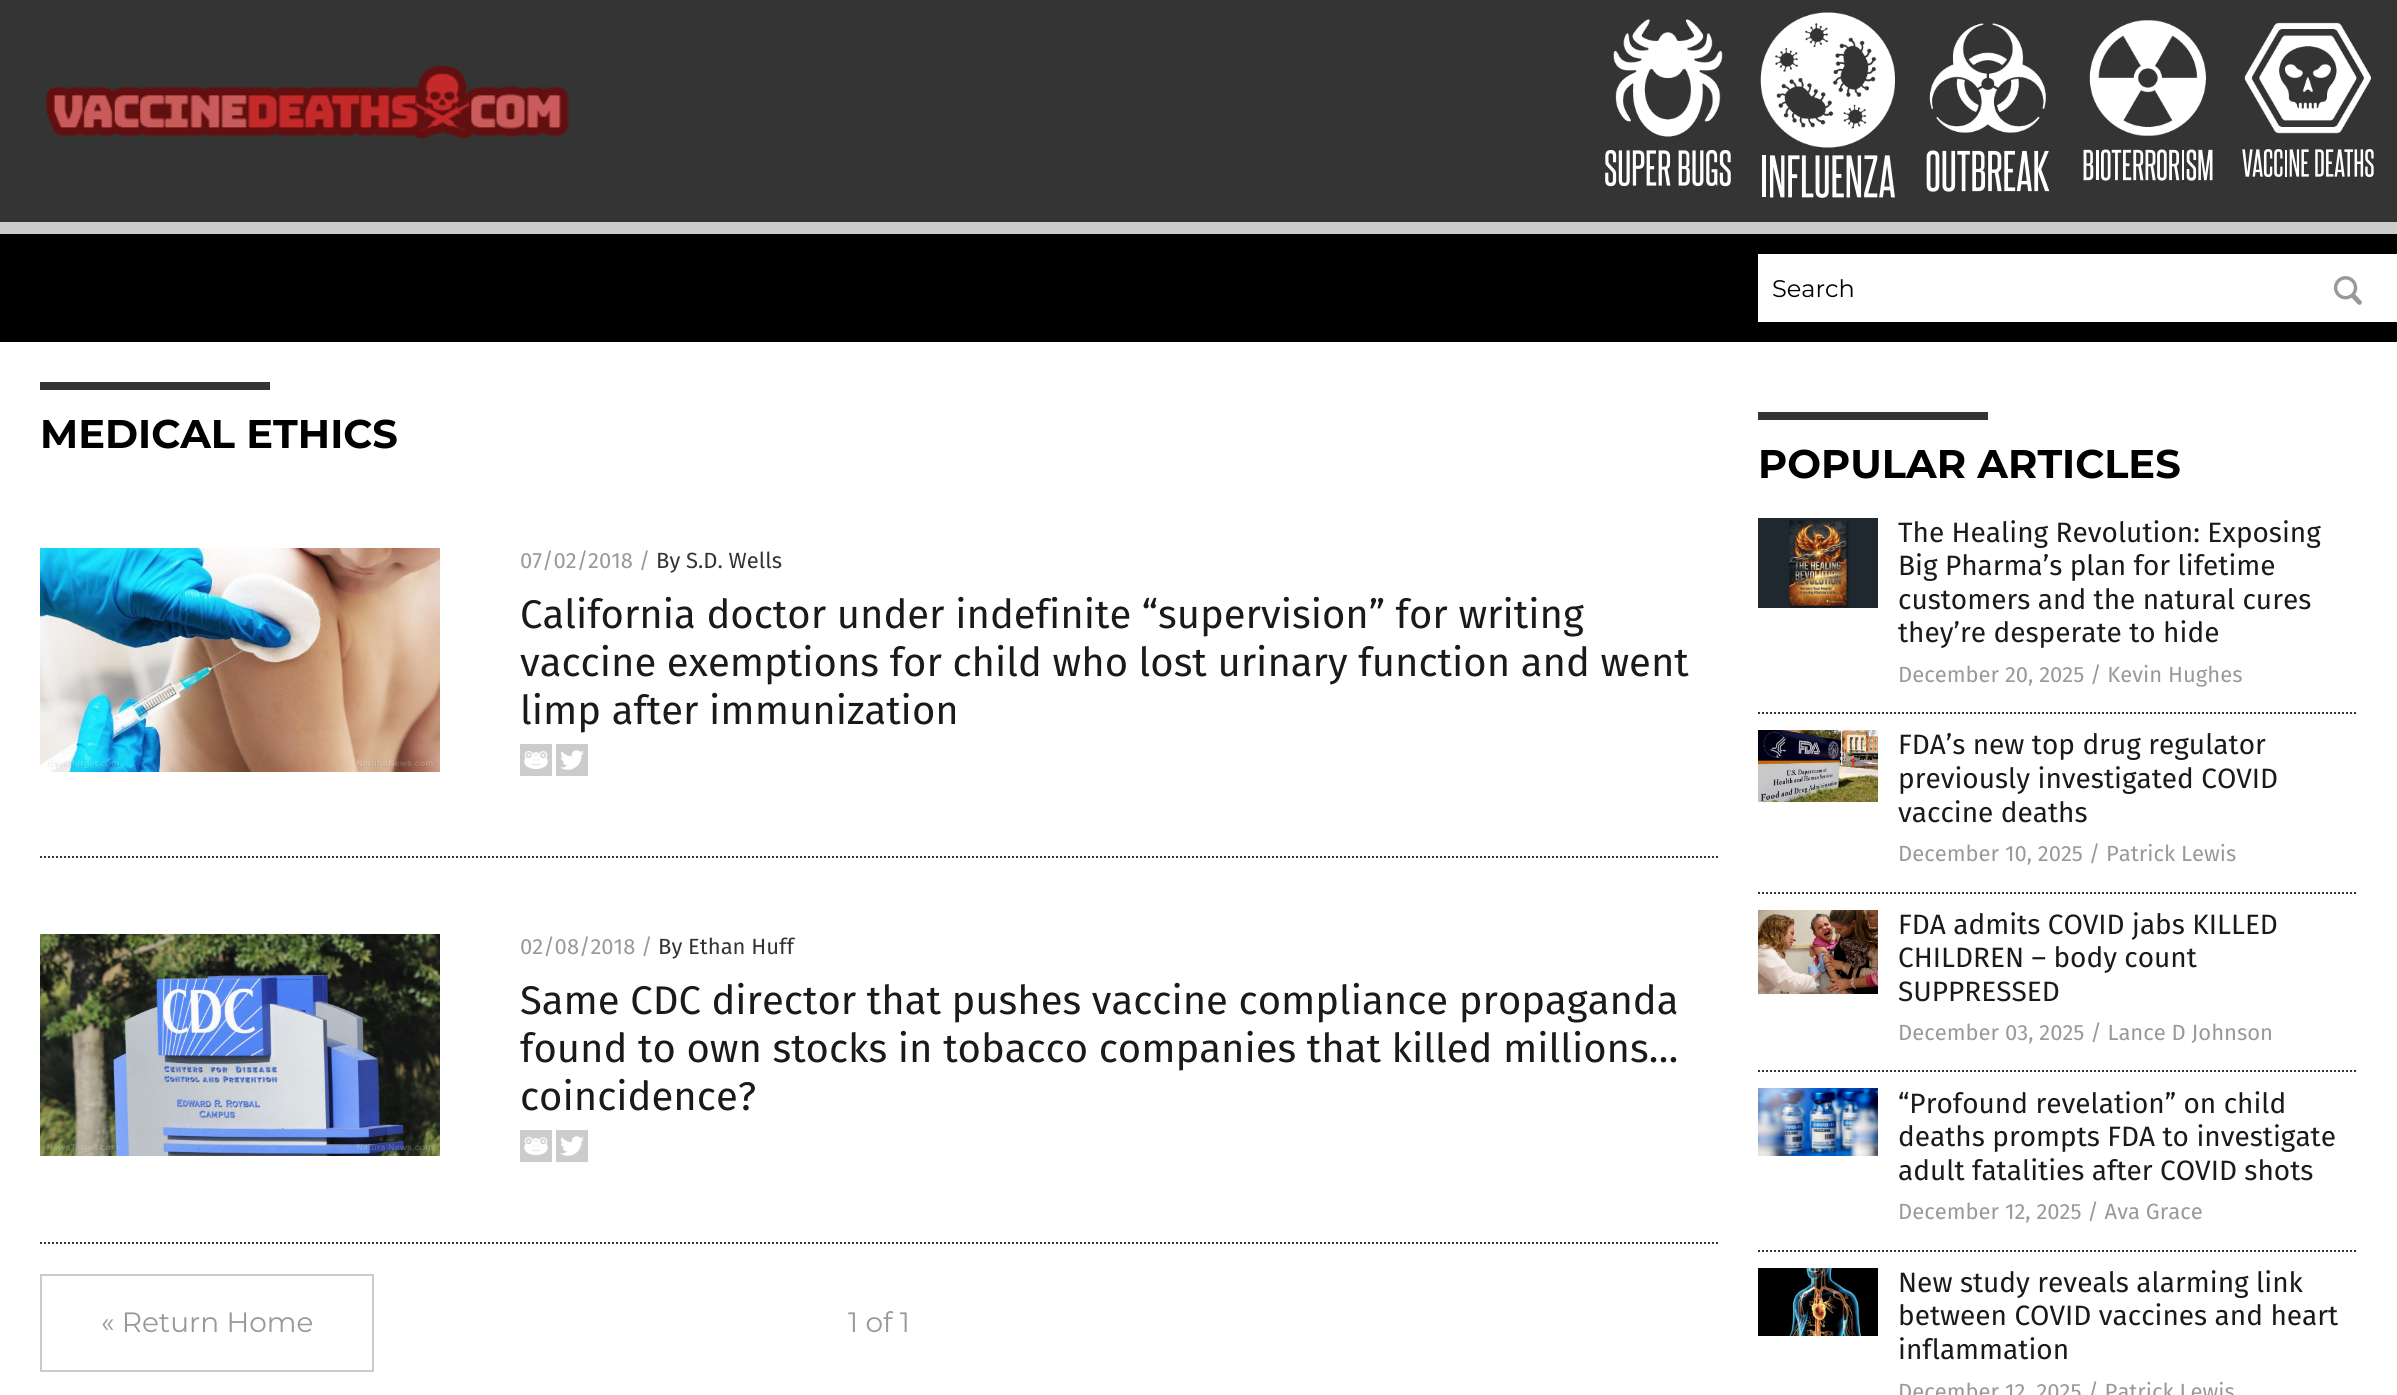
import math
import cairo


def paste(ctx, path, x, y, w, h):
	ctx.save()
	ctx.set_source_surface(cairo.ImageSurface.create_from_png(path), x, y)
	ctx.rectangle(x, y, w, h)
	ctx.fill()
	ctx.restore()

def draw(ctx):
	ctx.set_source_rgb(0, 0, 0)
	ctx.paint()
	ctx.set_source_rgb(0.204, 0.204, 0.204)
	ctx.rectangle(0, 0, 2397, 222)
	ctx.fill()
	paste(ctx, 'media/1.png', 46, 65, 523, 75)
	paste(ctx, 'media/2.png', 1613, 19, 110, 118)
	paste(ctx, 'media/3.png', 1605, 150, 126, 37)
	paste(ctx, 'media/4.png', 1760, 12, 135, 136)
	paste(ctx, 'media/5.png', 1762, 155, 133, 43)
	paste(ctx, 'media/6.png', 1929, 23, 117, 110)
	paste(ctx, 'media/7.png', 1926, 150, 124, 42)
	paste(ctx, 'media/8.png', 2089, 20, 117, 116)
	paste(ctx, 'media/9.png', 2083, 149, 130, 32)
	paste(ctx, 'media/10.png', 2244, 22, 127, 112)
	paste(ctx, 'media/11.png', 2242, 149, 132, 28)
	ctx.set_source_rgb(0.8, 0.8, 0.8)
	ctx.rectangle(0, 222, 2397, 12)
	ctx.fill()
	ctx.set_source_rgb(1, 1, 1)
	ctx.rectangle(1758, 254, 639, 68)
	ctx.fill()
	ctx.select_font_face('Montserrat')
	ctx.set_font_size(24)
	ctx.set_source_rgb(0, 0, 0)
	ctx.move_to(1772, 297)
	ctx.show_text('Search')
	paste(ctx, 'media/12.png', 2333, 276, 29, 29)
	ctx.set_source_rgb(1, 1, 1)
	ctx.rectangle(0, 342, 2397, 1053)
	ctx.fill()
	ctx.set_source_rgb(0.204, 0.204, 0.204)
	ctx.rectangle(40, 382, 230, 8)
	ctx.fill()
	ctx.select_font_face('Montserrat', cairo.FONT_SLANT_NORMAL, cairo.FONT_WEIGHT_BOLD)
	ctx.set_font_size(40)
	ctx.set_source_rgb(0, 0, 0)
	ctx.move_to(40, 448)
	ctx.show_text('MEDICAL ETHICS')
	ctx.new_path()
	ctx.move_to(40, 857)
	ctx.line_to(1718, 857)
	ctx.set_source_rgb(0.204, 0.204, 0.204)
	ctx.set_dash([2, 2])
	ctx.stroke()
	paste(ctx, 'media/13.png', 40, 548, 400, 224)
	ctx.select_font_face('Fira Sans')
	ctx.set_font_size(22)
	ctx.set_source_rgb(0.6, 0.6, 0.6)
	ctx.move_to(520, 568)
	ctx.show_text('07/02/2018 /')
	ctx.set_source_rgb(0.2, 0.2, 0.2)
	ctx.move_to(656, 568)
	ctx.show_text('By S.D. Wells')
	ctx.set_font_size(40)
	ctx.set_source_rgb(0.102, 0.102, 0.102)
	for x, y, s in [
		(520, 628, 'California doctor under indefinite “supervision” for writing'),
		(520, 676, 'vaccine exemptions for child who lost urinary function and went'),
		(520, 724, 'limp after immunization'),
	]:
		ctx.move_to(x, y)
		ctx.show_text(s)
	paste(ctx, 'media/14.png', 520, 744, 32, 32)
	paste(ctx, 'media/15.png', 556, 744, 32, 32)
	ctx.new_path()
	ctx.move_to(40, 1243)
	ctx.line_to(1718, 1243)
	ctx.set_source_rgb(0.204, 0.204, 0.204)
	ctx.stroke()
	paste(ctx, 'media/16.png', 40, 934, 400, 222)
	ctx.set_font_size(22)
	ctx.set_source_rgb(0.6, 0.6, 0.6)
	ctx.move_to(520, 954)
	ctx.show_text('02/08/2018 /')
	ctx.set_source_rgb(0.2, 0.2, 0.2)
	ctx.move_to(658, 954)
	ctx.show_text('By Ethan Huff')
	ctx.set_font_size(40)
	ctx.set_source_rgb(0.102, 0.102, 0.102)
	for x, y, s in [
		(520, 1014, 'Same CDC director that pushes vaccine compliance propaganda'),
		(520, 1062, 'found to own stocks in tobacco companies that killed millions…'),
		(520, 1110, 'coincidence?'),
	]:
		ctx.move_to(x, y)
		ctx.show_text(s)
	paste(ctx, 'media/14.png', 520, 1130, 32, 32)
	paste(ctx, 'media/15.png', 556, 1130, 32, 32)
	ctx.rectangle(41, 1275, 332, 96)
	ctx.set_source_rgb(0.8, 0.8, 0.8)
	ctx.set_dash([])
	ctx.stroke()
	ctx.select_font_face('Montserrat')
	ctx.set_font_size(28)
	ctx.set_source_rgb(0.6, 0.6, 0.6)
	ctx.move_to(101, 1332)
	ctx.show_text('« Return Home')
	ctx.move_to(848, 1332)
	ctx.show_text('1 of 1')
	ctx.set_source_rgb(0.204, 0.204, 0.204)
	ctx.rectangle(1758, 412, 230, 8)
	ctx.fill()
	ctx.select_font_face('Montserrat', cairo.FONT_SLANT_NORMAL, cairo.FONT_WEIGHT_BOLD)
	ctx.set_font_size(40)
	ctx.set_source_rgb(0, 0, 0)
	ctx.move_to(1758, 478)
	ctx.show_text('POPULAR ARTICLES')
	ctx.new_path()
	ctx.move_to(1758, 713)
	ctx.line_to(2358, 713)
	ctx.set_source_rgb(0.204, 0.204, 0.204)
	ctx.set_dash([2, 2])
	ctx.stroke()
	paste(ctx, 'media/17.png', 1758, 518, 120, 90)
	ctx.select_font_face('Fira Sans')
	ctx.set_font_size(28)
	ctx.set_source_rgb(0.102, 0.102, 0.102)
	for x, y, s in [
		(1898, 542, 'The Healing Revolution: Exposing'),
		(1898, 575, 'Big Pharma’s plan for lifetime'),
		(1898, 609, 'customers and the natural cures'),
		(1898, 642, 'they’re desperate to hide'),
	]:
		ctx.move_to(x, y)
		ctx.show_text(s)
	ctx.set_font_size(22)
	ctx.set_source_rgb(0.6, 0.6, 0.6)
	ctx.move_to(1898, 682)
	ctx.show_text('December 20, 2025 / Kevin Hughes')
	ctx.new_path()
	ctx.move_to(1758, 893)
	ctx.line_to(2358, 893)
	ctx.set_source_rgb(0.204, 0.204, 0.204)
	ctx.stroke()
	paste(ctx, 'media/18.png', 1758, 730, 120, 72)
	ctx.set_font_size(28)
	ctx.set_source_rgb(0.102, 0.102, 0.102)
	for x, y, s in [
		(1898, 754, 'FDA’s new top drug regulator'),
		(1898, 788, 'previously investigated COVID'),
		(1898, 822, 'vaccine deaths'),
	]:
		ctx.move_to(x, y)
		ctx.show_text(s)
	ctx.set_font_size(22)
	ctx.set_source_rgb(0.6, 0.6, 0.6)
	ctx.move_to(1898, 861)
	ctx.show_text('December 10, 2025 / Patrick Lewis')
	ctx.new_path()
	ctx.move_to(1758, 1071)
	ctx.line_to(2358, 1071)
	ctx.set_source_rgb(0.204, 0.204, 0.204)
	ctx.stroke()
	paste(ctx, 'media/19.png', 1758, 910, 120, 84)
	ctx.set_font_size(28)
	ctx.set_source_rgb(0.102, 0.102, 0.102)
	for x, y, s in [
		(1898, 934, 'FDA admits COVID jabs KILLED'),
		(1898, 967, 'CHILDREN – body count'),
		(1898, 1001, 'SUPPRESSED'),
	]:
		ctx.move_to(x, y)
		ctx.show_text(s)
	ctx.set_font_size(22)
	ctx.set_source_rgb(0.6, 0.6, 0.6)
	ctx.move_to(1898, 1040)
	ctx.show_text('December 03, 2025 / Lance D Johnson')
	ctx.new_path()
	ctx.move_to(1758, 1251)
	ctx.line_to(2358, 1251)
	ctx.set_source_rgb(0.204, 0.204, 0.204)
	ctx.stroke()
	paste(ctx, 'media/20.png', 1758, 1088, 120, 68)
	ctx.set_font_size(28)
	ctx.set_source_rgb(0.102, 0.102, 0.102)
	for x, y, s in [
		(1898, 1113, '“Profound revelation” on child'),
		(1898, 1146, 'deaths prompts FDA to investigate'),
		(1898, 1180, 'adult fatalities after COVID shots'),
	]:
		ctx.move_to(x, y)
		ctx.show_text(s)
	ctx.set_font_size(22)
	ctx.set_source_rgb(0.6, 0.6, 0.6)
	ctx.move_to(1898, 1219)
	ctx.show_text('December 12, 2025 / Ava Grace')
	paste(ctx, 'media/21.png', 1758, 1268, 120, 68)
	ctx.set_font_size(28)
	ctx.set_source_rgb(0.102, 0.102, 0.102)
	for x, y, s in [
		(1898, 1292, 'New study reveals alarming link'),
		(1898, 1325, 'between COVID vaccines and heart'),
		(1898, 1359, 'inflammation'),
	]:
		ctx.move_to(x, y)
		ctx.show_text(s)
	ctx.set_font_size(22)
	ctx.set_source_rgb(0.6, 0.6, 0.6)
	ctx.move_to(1898, 1399)
	ctx.show_text('December 12, 2025 / Patrick Lewis')


surface = cairo.ImageSurface(cairo.FORMAT_RGB24, 2397, 1395)
ctx = cairo.Context(surface)
options = cairo.FontOptions()
options.set_hint_metrics(cairo.HINT_METRICS_OFF)
options.set_hint_style(cairo.HINT_STYLE_NONE)
ctx.set_font_options(options)
ctx.set_miter_limit(4)
draw(ctx)
surface.write_to_png('image.png')
